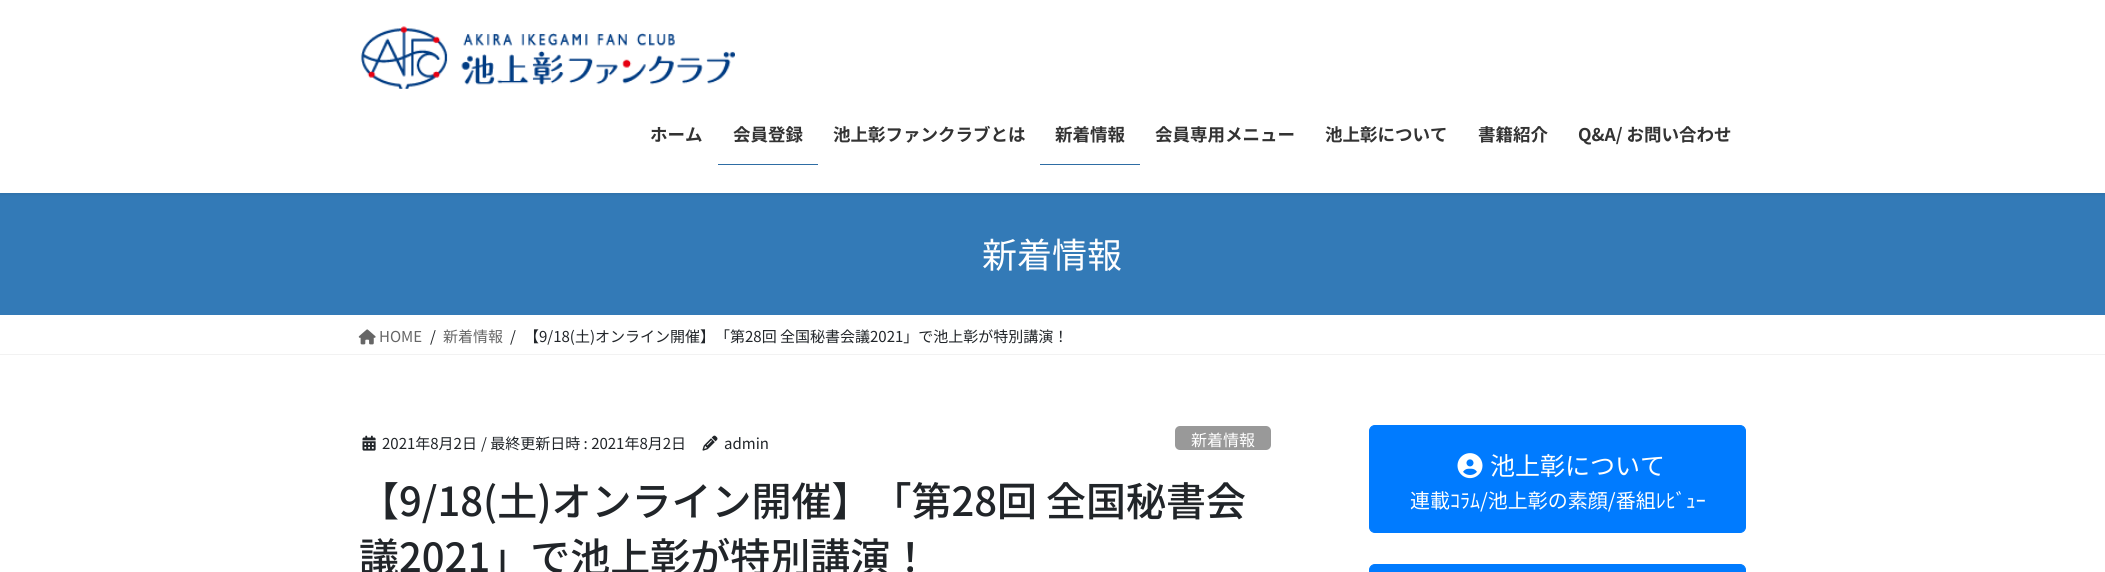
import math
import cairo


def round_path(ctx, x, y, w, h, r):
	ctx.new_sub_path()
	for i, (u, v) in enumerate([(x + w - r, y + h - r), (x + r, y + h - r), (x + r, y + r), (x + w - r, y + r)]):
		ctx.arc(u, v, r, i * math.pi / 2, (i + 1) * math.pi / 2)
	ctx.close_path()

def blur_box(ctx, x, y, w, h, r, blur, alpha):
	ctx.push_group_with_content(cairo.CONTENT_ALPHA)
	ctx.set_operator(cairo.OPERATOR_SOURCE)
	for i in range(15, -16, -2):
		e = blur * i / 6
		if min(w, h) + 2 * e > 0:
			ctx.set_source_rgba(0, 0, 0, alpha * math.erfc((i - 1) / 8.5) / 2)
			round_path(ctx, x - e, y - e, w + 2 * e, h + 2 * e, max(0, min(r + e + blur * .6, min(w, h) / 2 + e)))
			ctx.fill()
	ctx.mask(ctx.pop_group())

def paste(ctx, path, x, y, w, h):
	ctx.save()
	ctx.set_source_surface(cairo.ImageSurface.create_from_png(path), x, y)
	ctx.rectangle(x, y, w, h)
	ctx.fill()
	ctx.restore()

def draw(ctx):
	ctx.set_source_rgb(1, 1, 1)
	ctx.paint()
	ctx.set_source_rgb(0.2, 0.478, 0.718)
	ctx.rectangle(0, 193, 2105, 122)
	ctx.fill()
	ctx.set_source_rgb(0, 0, 0)
	blur_box(ctx, 0, 1, 2105, 193, 0, 2, 0.1)
	ctx.set_source_rgb(1, 1, 1)
	ctx.rectangle(0, 0, 2105, 193)
	ctx.fill()
	paste(ctx, 'media/1.png', 360, 26, 375, 63)
	ctx.select_font_face('Noto Sans JP', cairo.FONT_SLANT_NORMAL, cairo.FONT_WEIGHT_BOLD)
	ctx.set_font_size(17.5)
	ctx.set_source_rgb(0.2, 0.2, 0.2)
	ctx.move_to(650, 141)
	ctx.show_text('ホーム')
	ctx.move_to(733, 141)
	ctx.show_text('会員登録')
	ctx.set_source_rgb(0.18, 0.427, 0.643)
	ctx.rectangle(718, 164, 100, 1)
	ctx.fill()
	ctx.set_source_rgb(0.2, 0.2, 0.2)
	ctx.move_to(833, 141)
	ctx.show_text('池上彰ファンクラブとは')
	ctx.move_to(1055, 141)
	ctx.show_text('新着情報')
	ctx.set_source_rgb(0.18, 0.427, 0.643)
	ctx.rectangle(1040, 164, 100, 1)
	ctx.fill()
	ctx.set_source_rgb(0.2, 0.2, 0.2)
	for x, y, s in [
		(1155, 141, '会員専用メニュー'),
		(1325, 141, '池上彰について'),
		(1478, 141, '書籍紹介'),
		(1578, 141, 'Q&A/ お問い合わせ'),
	]:
		ctx.move_to(x, y)
		ctx.show_text(s)
	ctx.select_font_face('Noto Sans JP')
	ctx.set_font_size(35)
	ctx.set_source_rgb(1, 1, 1)
	ctx.move_to(982, 268)
	ctx.show_text('新着情報')
	ctx.set_source_rgb(0.949, 0.949, 0.949)
	ctx.rectangle(0, 354, 2105, 1)
	ctx.fill()
	paste(ctx, 'media/2.png', 358, 329, 18, 16)
	ctx.set_font_size(15)
	ctx.set_source_rgb(0.4, 0.4, 0.4)
	ctx.move_to(379, 342)
	ctx.show_text('HOME')
	ctx.set_source_rgb(0.129, 0.145, 0.161)
	ctx.move_to(430, 342)
	ctx.show_text('/')
	ctx.set_source_rgb(0.4, 0.4, 0.4)
	ctx.move_to(443, 342)
	ctx.show_text('新着情報')
	ctx.set_source_rgb(0.129, 0.145, 0.161)
	ctx.move_to(510, 342)
	ctx.show_text('/')
	ctx.move_to(524, 342)
	ctx.show_text('【9/18(土)オンライン開催】「第28回 全国秘書会議2021」で池上彰が特別講演！')
	paste(ctx, 'media/3.png', 362, 435, 14, 16)
	ctx.move_to(382, 449)
	ctx.show_text('2021年8月2日')
	ctx.move_to(481, 449)
	ctx.show_text('/ 最終更新日時 : 2021年8月2日')
	paste(ctx, 'media/4.png', 702, 435, 16, 16)
	ctx.move_to(724, 449)
	ctx.show_text('admin')
	ctx.set_source_rgb(0.6, 0.6, 0.6)
	round_path(ctx, 1175, 426, 96, 24, 5)
	ctx.fill()
	ctx.set_font_size(16)
	ctx.set_source_rgb(1, 1, 1)
	ctx.move_to(1191, 446)
	ctx.show_text('新着情報')
	ctx.select_font_face('Noto Sans JP Medium')
	ctx.set_font_size(40)
	ctx.set_source_rgb(0.129, 0.145, 0.161)
	ctx.move_to(359, 516)
	ctx.show_text('【9/18(土)オンライン開催】「第28回 全国秘書会')
	ctx.move_to(359, 572)
	ctx.show_text('議2021」で池上彰が特別講演！')
	ctx.set_source_rgb(0, 0.482, 1)
	round_path(ctx, 1369.5, 425.5, 376, 107, 5.5)
	ctx.fill_preserve()
	ctx.set_line_width(1)
	ctx.stroke()
	paste(ctx, 'media/5.png', 1457, 453, 26, 26)
	ctx.select_font_face('Noto Sans JP')
	ctx.set_font_size(25)
	ctx.set_source_rgb(1, 1, 1)
	ctx.move_to(1490, 475)
	ctx.show_text('池上彰について')
	ctx.set_font_size(20)
	ctx.move_to(1410, 508)
	ctx.show_text('連載ｺﾗﾑ/池上彰の素顔/番組ﾚﾋﾞｭｰ')
	ctx.set_source_rgb(0, 0.482, 1)
	round_path(ctx, 1369.5, 564.5, 376, 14, 5.5)
	ctx.fill_preserve()
	ctx.stroke()


surface = cairo.ImageSurface(cairo.FORMAT_RGB24, 2105, 572)
ctx = cairo.Context(surface)
options = cairo.FontOptions()
options.set_hint_metrics(cairo.HINT_METRICS_OFF)
options.set_hint_style(cairo.HINT_STYLE_NONE)
ctx.set_font_options(options)
ctx.set_miter_limit(4)
draw(ctx)
surface.write_to_png('image.png')
